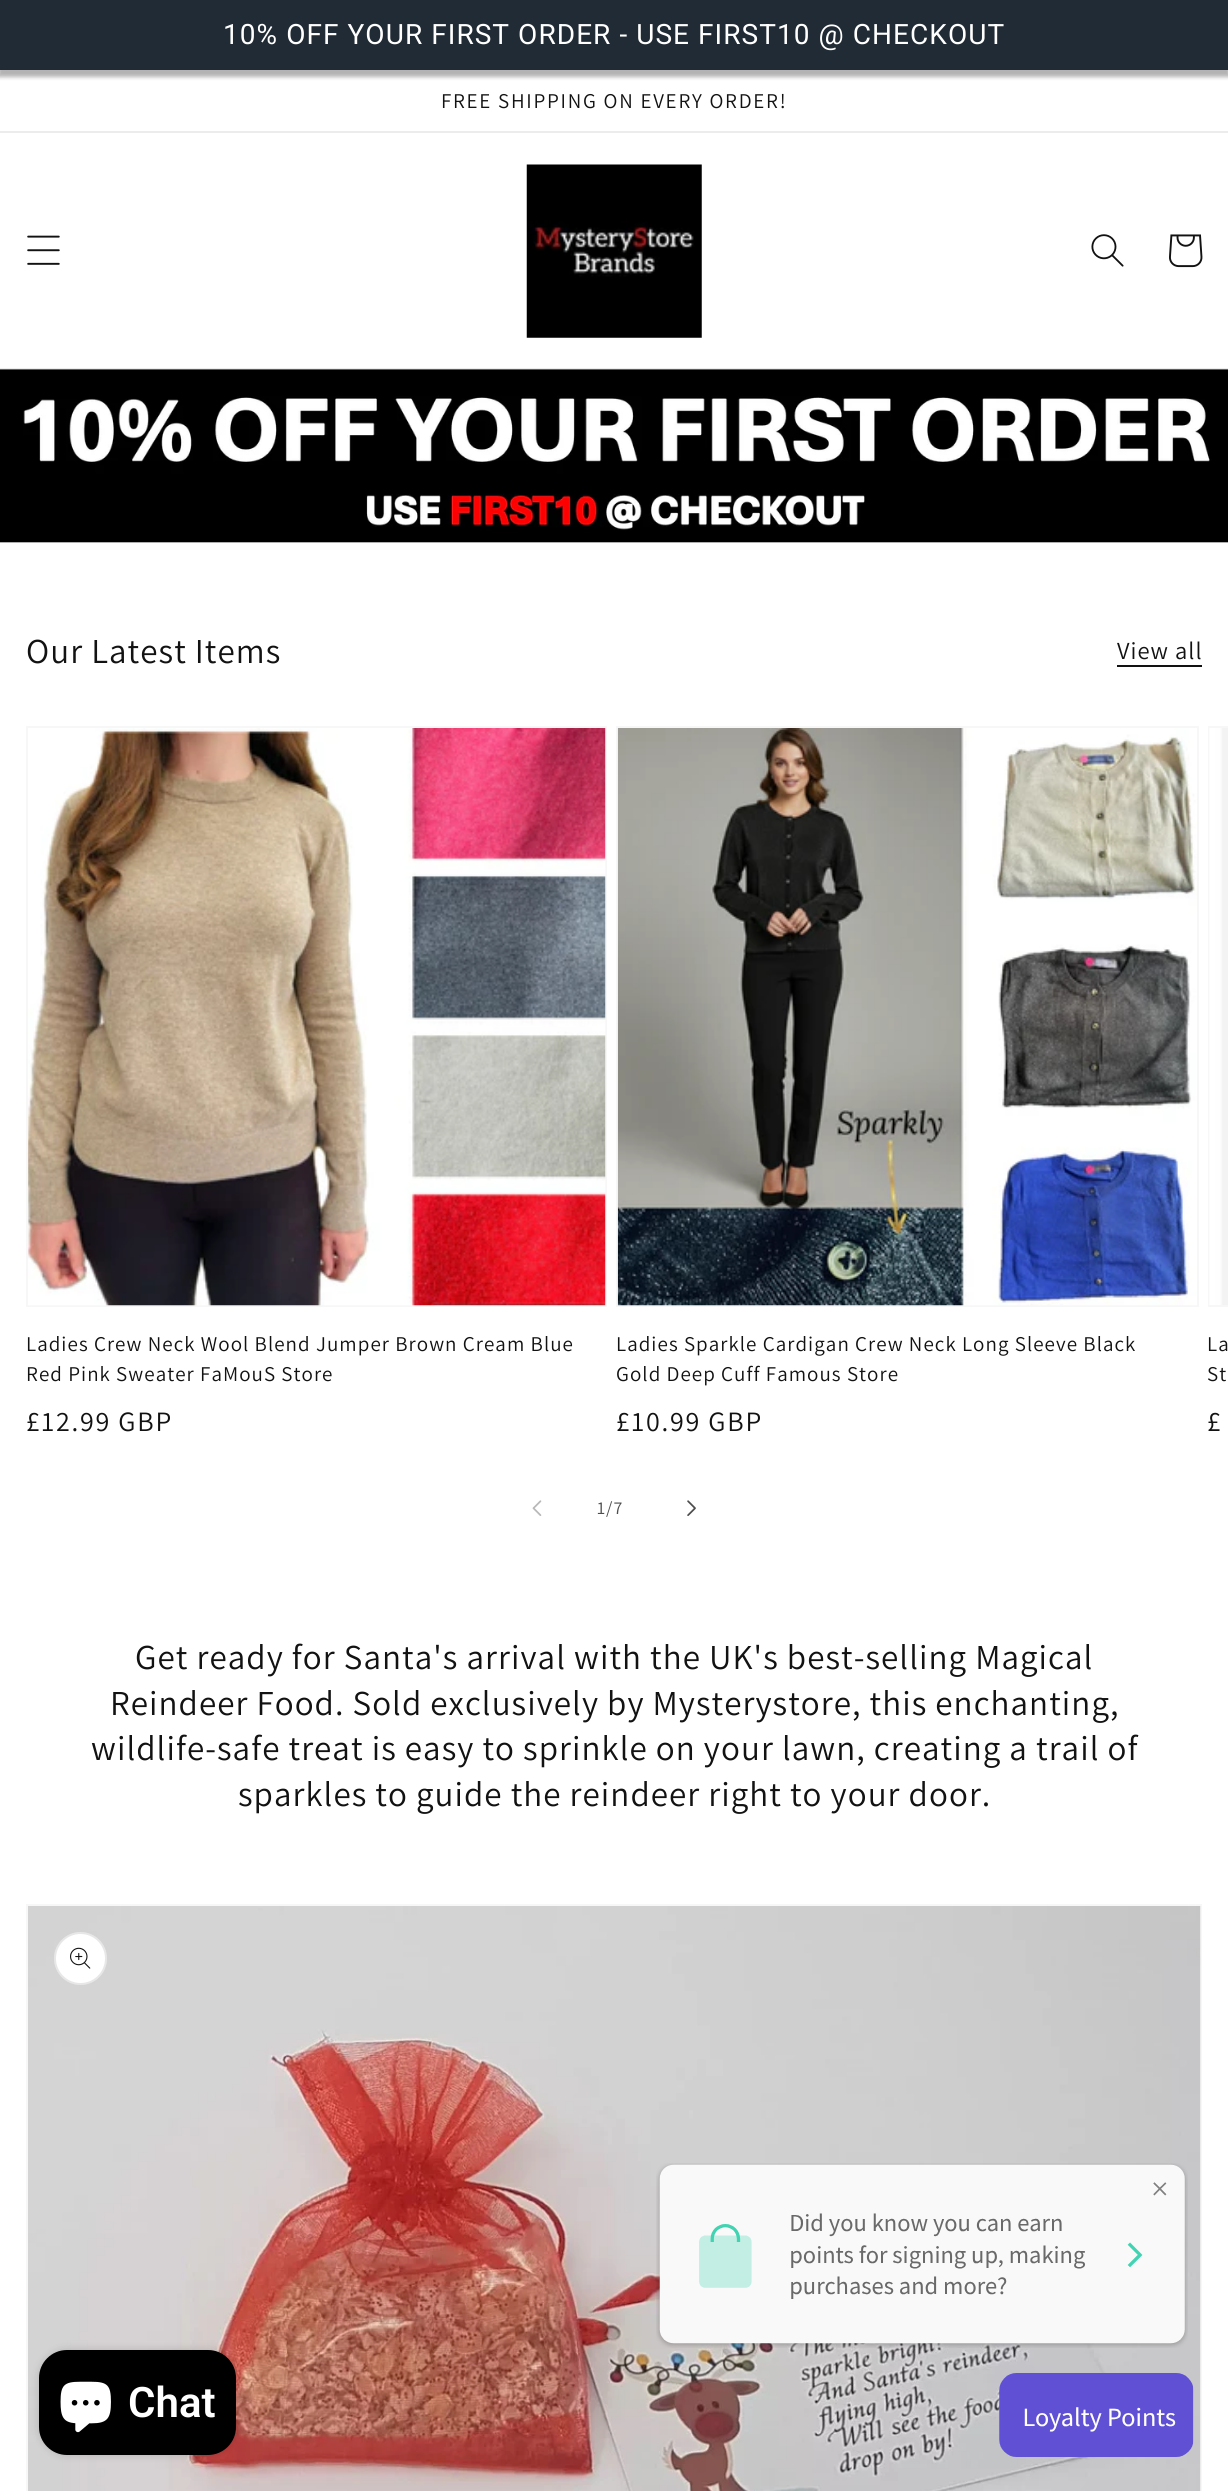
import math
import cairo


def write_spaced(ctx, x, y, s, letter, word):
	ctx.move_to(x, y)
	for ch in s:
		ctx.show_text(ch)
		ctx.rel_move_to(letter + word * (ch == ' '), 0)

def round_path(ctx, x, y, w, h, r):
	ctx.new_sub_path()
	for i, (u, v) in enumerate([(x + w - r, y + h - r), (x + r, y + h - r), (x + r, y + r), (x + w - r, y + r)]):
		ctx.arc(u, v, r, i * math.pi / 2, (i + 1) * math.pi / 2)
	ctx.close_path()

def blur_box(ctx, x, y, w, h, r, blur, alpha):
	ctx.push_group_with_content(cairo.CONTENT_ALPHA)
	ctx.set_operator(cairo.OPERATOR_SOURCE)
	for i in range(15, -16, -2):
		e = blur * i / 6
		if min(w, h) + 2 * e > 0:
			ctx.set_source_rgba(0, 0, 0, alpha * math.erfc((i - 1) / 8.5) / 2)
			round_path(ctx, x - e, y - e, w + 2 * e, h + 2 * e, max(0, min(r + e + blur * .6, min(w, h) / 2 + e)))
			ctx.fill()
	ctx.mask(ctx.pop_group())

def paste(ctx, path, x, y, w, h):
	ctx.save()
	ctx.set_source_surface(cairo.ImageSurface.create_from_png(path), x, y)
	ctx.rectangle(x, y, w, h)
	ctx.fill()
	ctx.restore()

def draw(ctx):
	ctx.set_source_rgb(1, 1, 1)
	ctx.paint()
	ctx.set_source_rgb(0, 0, 0)
	blur_box(ctx, -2, 4, 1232, 73, 0, 2, 0.3)
	ctx.set_source_rgb(0.129, 0.169, 0.208)
	ctx.rectangle(0, 0, 1228, 70)
	ctx.fill()
	ctx.select_font_face('Roboto')
	ctx.set_font_size(28)
	ctx.set_source_rgb(1, 1, 1)
	write_spaced(ctx, 223, 44, '10% OFF YOUR FIRST ORDER - USE FIRST10 @ CHECKOUT', 1.05, 0)
	ctx.set_source_rgb(0.925, 0.925, 0.925)
	ctx.rectangle(0, 131, 1228, 2)
	ctx.fill()
	ctx.select_font_face('Assistant')
	ctx.set_font_size(21)
	ctx.set_source_rgb(0.071, 0.071, 0.071)
	write_spaced(ctx, 441, 108, 'FREE SHIPPING ON EVERY ORDER!', 1.75, 0)
	ctx.set_source_rgb(0.91, 0.91, 0.91)
	ctx.rectangle(0, 369, 1228, 174)
	ctx.fill()
	paste(ctx, 'media/5.png', 0, 369, 1228, 174)
	ctx.set_source_rgba(0.071, 0.071, 0.071, 0.08)
	ctx.rectangle(0, 368, 1228, 2)
	ctx.fill()
	paste(ctx, 'media/1.png', 27, 235, 33, 30)
	paste(ctx, 'media/2.png', 526, 164, 176, 174)
	paste(ctx, 'media/3.png', 1091, 234, 33, 33)
	paste(ctx, 'media/4.png', 1169, 234, 34, 34)
	ctx.set_font_size(35)
	ctx.set_source_rgb(0.071, 0.071, 0.071)
	write_spaced(ctx, 26, 663, 'Our Latest Items', 1.05, 0)
	ctx.set_font_size(24.5)
	write_spaced(ctx, 1117, 659, 'View all', 1.05, 0)
	ctx.rectangle(1117, 665, 85, 2)
	ctx.fill()
	ctx.rectangle(27, 727, 579, 579)
	ctx.set_source_rgb(0.965, 0.965, 0.965)
	ctx.stroke()
	paste(ctx, 'media/6.png', 28, 728, 578, 578)
	ctx.set_font_size(21)
	ctx.set_source_rgb(0.071, 0.071, 0.071)
	write_spaced(ctx, 26, 1351, 'Ladies Crew Neck Wool Blend Jumper Brown Cream Blue', 1.05, 0)
	write_spaced(ctx, 26, 1381, 'Red Pink Sweater FaMouS Store', 1.05, 0)
	ctx.set_font_size(28)
	write_spaced(ctx, 26, 1431, '£12.99 GBP', 1.75, 0)
	ctx.rectangle(617, 727, 581, 579)
	ctx.set_source_rgb(0.965, 0.965, 0.965)
	ctx.stroke()
	paste(ctx, 'media/7.png', 617, 728, 580, 578)
	ctx.set_font_size(21)
	ctx.set_source_rgb(0.071, 0.071, 0.071)
	write_spaced(ctx, 616, 1351, 'Ladies Sparkle Cardigan Crew Neck Long Sleeve Black', 1.05, 0)
	write_spaced(ctx, 616, 1381, 'Gold Deep Cuff Famous Store', 1.05, 0)
	ctx.set_font_size(28)
	write_spaced(ctx, 616, 1431, '£10.99 GBP', 1.75, 0)
	ctx.rectangle(1209, 727, 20, 579)
	ctx.set_source_rgb(0.965, 0.965, 0.965)
	ctx.stroke()
	paste(ctx, 'media/8.png', 1209, 728, 19, 577)
	ctx.set_font_size(21)
	ctx.set_source_rgb(0.071, 0.071, 0.071)
	write_spaced(ctx, 1207, 1351, 'La', 1.05, 0)
	write_spaced(ctx, 1207, 1381, 'St', 1.05, 0)
	ctx.set_font_size(28)
	write_spaced(ctx, 1207, 1431, '£', 1.75, 0)
	paste(ctx, 'media/9.png', 532, 1500, 10, 16)
	ctx.set_font_size(18)
	ctx.set_source_rgb(0.302, 0.302, 0.302)
	write_spaced(ctx, 597, 1514, '1/7', 1, 0)
	paste(ctx, 'media/10.png', 687, 1500, 9, 16)
	ctx.set_font_size(35)
	ctx.set_source_rgb(0.071, 0.071, 0.071)
	for x, y, s in [
		(135, 1669, 'Get ready for Santa\'s arrival with the UK\'s best-selling Magical'),
		(110, 1715, 'Reindeer Food. Sold exclusively by Mysterystore, this enchanting,'),
		(91, 1760, 'wildlife-safe treat is easy to sprinkle on your lawn, creating a trail of'),
		(238, 1806, 'sparkles to guide the reindeer right to your door.'),
	]:
		write_spaced(ctx, x, y, s, 1.05, 0)
	ctx.rectangle(27, 1905, 1174, 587)
	ctx.set_source_rgb(0.965, 0.965, 0.965)
	ctx.stroke()
	paste(ctx, 'media/11.png', 28, 1906, 1173, 585)
	ctx.set_source_rgb(1, 1, 1)
	ctx.arc(80.5, 1958.5, 26.5, 0, 2 * math.pi)
	ctx.fill()
	ctx.arc(80.5, 1958.5, 25.5, 0, 2 * math.pi)
	ctx.set_source_rgba(0.071, 0.071, 0.071, 0.1)
	ctx.stroke()
	paste(ctx, 'media/12.png', 70, 1947, 21, 22)
	paste(ctx, 'media/13.png', 656, 2163, 532, 185)
	ctx.set_source_rgb(0, 0, 0)
	blur_box(ctx, 39, 2350, 197, 105, 28, 4.5, 0.15)
	ctx.set_source_rgb(0, 0, 0)
	round_path(ctx, 39, 2350, 197, 105, 28)
	ctx.fill()
	paste(ctx, 'media/14.png', 60, 2381, 51, 52)
	ctx.select_font_face('Roboto SemiBold')
	ctx.set_font_size(42)
	ctx.set_source_rgb(1, 1, 1)
	ctx.move_to(128, 2417)
	ctx.show_text('Chat')
	paste(ctx, 'media/15.png', 999, 2373, 195, 84)


surface = cairo.ImageSurface(cairo.FORMAT_RGB24, 1228, 2491)
ctx = cairo.Context(surface)
options = cairo.FontOptions()
options.set_hint_metrics(cairo.HINT_METRICS_OFF)
options.set_hint_style(cairo.HINT_STYLE_NONE)
ctx.set_font_options(options)
ctx.set_miter_limit(4)
draw(ctx)
surface.write_to_png('image.png')
